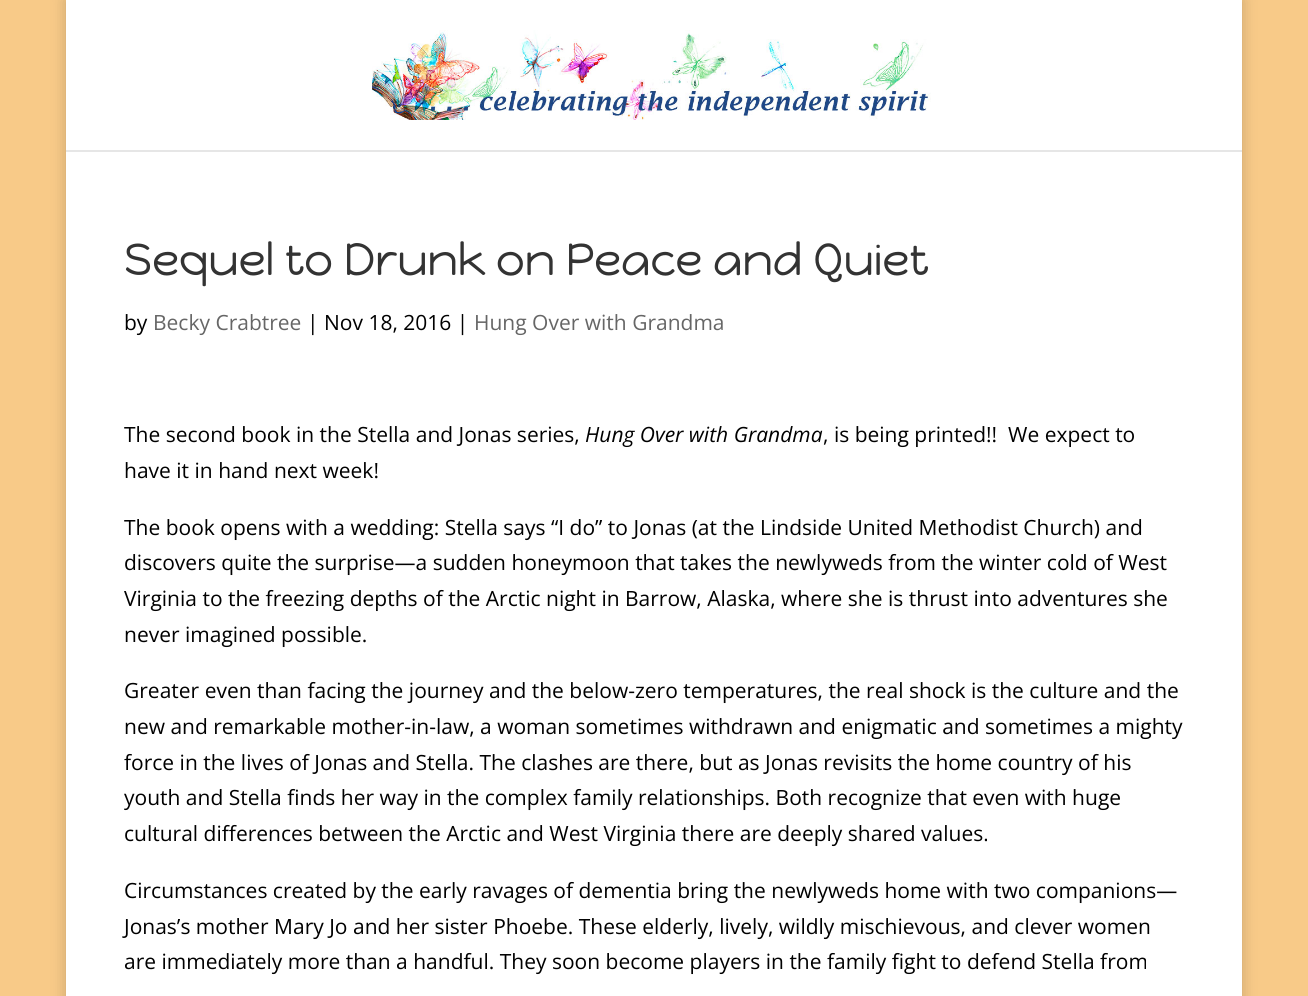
import math
import cairo


def round_path(ctx, x, y, w, h, r):
	ctx.new_sub_path()
	for i, (u, v) in enumerate([(x + w - r, y + h - r), (x + r, y + h - r), (x + r, y + r), (x + w - r, y + r)]):
		ctx.arc(u, v, r, i * math.pi / 2, (i + 1) * math.pi / 2)
	ctx.close_path()

def blur_box(ctx, x, y, w, h, r, blur, alpha):
	ctx.push_group_with_content(cairo.CONTENT_ALPHA)
	ctx.set_operator(cairo.OPERATOR_SOURCE)
	for i in range(15, -16, -2):
		e = blur * i / 6
		if min(w, h) + 2 * e > 0:
			ctx.set_source_rgba(0, 0, 0, alpha * math.erfc((i - 1) / 8.5) / 2)
			round_path(ctx, x - e, y - e, w + 2 * e, h + 2 * e, max(0, min(r + e + blur * .6, min(w, h) / 2 + e)))
			ctx.fill()
	ctx.mask(ctx.pop_group())

def paste(ctx, path, x, y, w, h):
	ctx.save()
	ctx.set_source_surface(cairo.ImageSurface.create_from_png(path), x, y)
	ctx.rectangle(x, y, w, h)
	ctx.fill()
	ctx.restore()

def draw(ctx):
	ctx.set_source_rgb(0.969, 0.792, 0.533)
	ctx.paint()
	ctx.set_source_rgb(0, 0, 0)
	blur_box(ctx, 66, 0, 1176, 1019, 0, 7.5, 0.2)
	ctx.set_source_rgb(0.902, 0.902, 0.902)
	ctx.rectangle(66, 150, 1176, 2)
	ctx.fill()
	ctx.set_source_rgb(1, 1, 1)
	ctx.rectangle(66, 0, 1176, 150)
	ctx.fill()
	paste(ctx, 'media/1.png', 372, 30, 559, 90)
	ctx.rectangle(66, 152, 1176, 844)
	ctx.fill()
	ctx.select_font_face('Happy Monkey')
	ctx.set_font_size(45)
	ctx.set_source_rgb(0.2, 0.2, 0.2)
	ctx.move_to(124, 275)
	ctx.show_text('Sequel to Drunk on Peace and Quiet')
	ctx.select_font_face('Open Sans')
	ctx.set_font_size(21)
	ctx.set_source_rgb(0, 0, 0)
	ctx.move_to(124, 330)
	ctx.show_text('by')
	ctx.set_source_rgb(0.4, 0.4, 0.4)
	ctx.move_to(153, 330)
	ctx.show_text('Becky Crabtree')
	ctx.set_source_rgb(0, 0, 0)
	ctx.move_to(307, 330)
	ctx.show_text('| Nov 18, 2016 |')
	ctx.set_source_rgb(0.4, 0.4, 0.4)
	ctx.move_to(474, 330)
	ctx.show_text('Hung Over with Grandma')
	ctx.set_source_rgb(0, 0, 0)
	ctx.move_to(124, 442)
	ctx.show_text('The second book in the Stella and Jonas series,')
	ctx.select_font_face('Open Sans', cairo.FONT_SLANT_ITALIC)
	ctx.move_to(585, 442)
	ctx.show_text('Hung Over with Grandma')
	ctx.select_font_face('Open Sans')
	for x, y, s in [
		(823, 442, ', is being printed!!  We expect to'),
		(124, 478, 'have it in hand next week!'),
		(124, 535, 'The book opens with a wedding: Stella says “I do” to Jonas (at the Lindside United Methodist Church) and'),
		(124, 570, 'discovers quite the surprise—a sudden honeymoon that takes the newlyweds from the winter cold of West'),
		(124, 606, 'Virginia to the freezing depths of the Arctic night in Barrow, Alaska, where she is thrust into adventures she'),
		(124, 642, 'never imagined possible.'),
		(124, 698, 'Greater even than facing the journey and the below-zero temperatures, the real shock is the culture and the'),
		(124, 734, 'new and remarkable mother-in-law, a woman sometimes withdrawn and enigmatic and sometimes a mighty'),
		(124, 770, 'force in the lives of Jonas and Stella. The clashes are there, but as Jonas revisits the home country of his'),
		(124, 805, 'youth and Stella finds her way in the complex family relationships. Both recognize that even with huge'),
		(124, 841, 'cultural differences between the Arctic and West Virginia there are deeply shared values.'),
		(124, 898, 'Circumstances created by the early ravages of dementia bring the newlyweds home with two companions—'),
		(124, 934, 'Jonas’s mother Mary Jo and her sister Phoebe. These elderly, lively, wildly mischievous, and clever women'),
		(124, 969, 'are immediately more than a handful. They soon become players in the family fight to defend Stella from'),
	]:
		ctx.move_to(x, y)
		ctx.show_text(s)


surface = cairo.ImageSurface(cairo.FORMAT_RGB24, 1308, 996)
ctx = cairo.Context(surface)
options = cairo.FontOptions()
options.set_hint_metrics(cairo.HINT_METRICS_OFF)
options.set_hint_style(cairo.HINT_STYLE_NONE)
ctx.set_font_options(options)
ctx.set_miter_limit(4)
draw(ctx)
surface.write_to_png('image.png')
